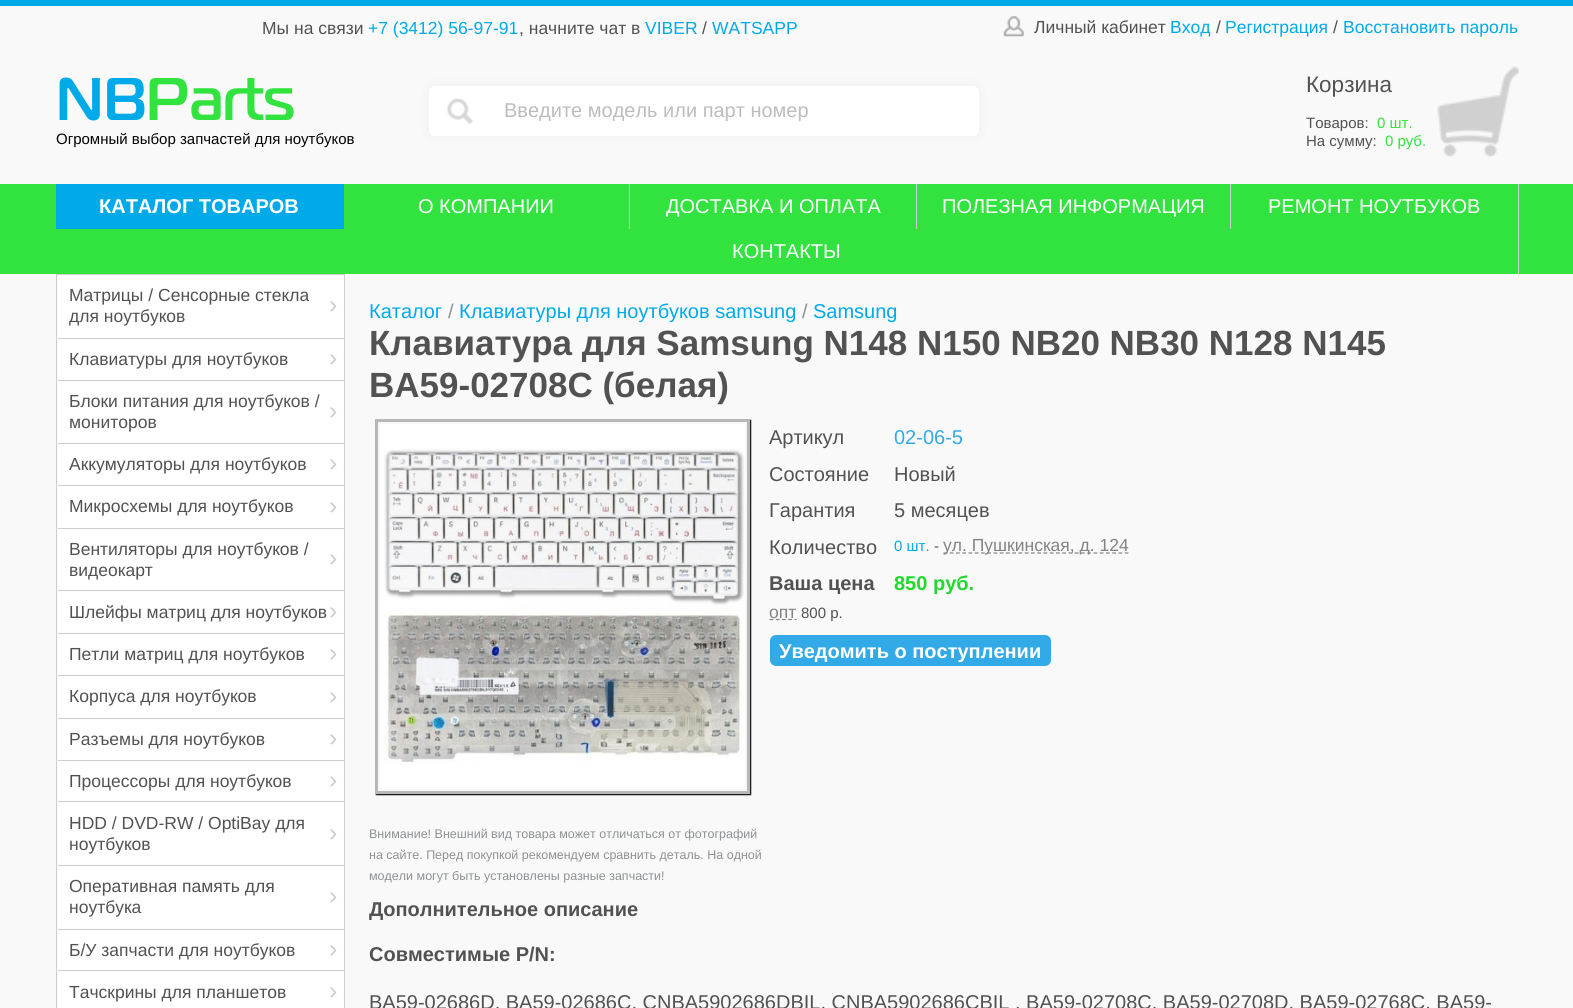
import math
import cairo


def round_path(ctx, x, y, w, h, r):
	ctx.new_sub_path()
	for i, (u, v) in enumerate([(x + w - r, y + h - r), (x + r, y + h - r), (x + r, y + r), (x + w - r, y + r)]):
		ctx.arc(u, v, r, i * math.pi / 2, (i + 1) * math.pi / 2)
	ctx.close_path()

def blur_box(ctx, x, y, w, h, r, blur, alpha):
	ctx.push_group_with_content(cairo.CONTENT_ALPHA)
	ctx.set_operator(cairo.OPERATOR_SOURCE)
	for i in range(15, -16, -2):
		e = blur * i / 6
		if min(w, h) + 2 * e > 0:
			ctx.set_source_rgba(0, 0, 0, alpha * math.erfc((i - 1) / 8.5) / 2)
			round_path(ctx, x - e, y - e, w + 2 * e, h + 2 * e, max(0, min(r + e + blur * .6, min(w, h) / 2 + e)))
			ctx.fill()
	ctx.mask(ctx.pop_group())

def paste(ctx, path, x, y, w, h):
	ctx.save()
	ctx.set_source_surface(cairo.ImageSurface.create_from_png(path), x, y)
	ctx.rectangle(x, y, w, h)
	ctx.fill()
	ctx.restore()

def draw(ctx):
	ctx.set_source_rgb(0.976, 0.976, 0.976)
	ctx.paint()
	ctx.set_source_rgb(0, 0.667, 0.91)
	ctx.rectangle(0, 0, 1573, 6)
	ctx.fill()
	ctx.select_font_face('Liberation Sans')
	ctx.set_font_size(17.5)
	ctx.set_source_rgb(0.322, 0.322, 0.322)
	ctx.move_to(262, 34)
	ctx.show_text('Мы на связи')
	ctx.set_source_rgb(0, 0.667, 0.91)
	ctx.move_to(368, 34)
	ctx.show_text('+7 (3412) 56-97-91')
	ctx.set_source_rgb(0.322, 0.322, 0.322)
	ctx.move_to(519, 34)
	ctx.show_text(', начните чат в')
	ctx.set_source_rgb(0, 0.667, 0.91)
	ctx.move_to(645, 34)
	ctx.show_text('VIBER')
	ctx.set_source_rgb(0.322, 0.322, 0.322)
	ctx.move_to(702, 34)
	ctx.show_text('/')
	ctx.set_source_rgb(0, 0.667, 0.91)
	ctx.move_to(712, 34)
	ctx.show_text('WATSAPP')
	paste(ctx, 'media/1.png', 1003, 16, 21, 21)
	ctx.set_source_rgb(0.322, 0.322, 0.322)
	ctx.move_to(1034, 33)
	ctx.show_text('Личный кабинет')
	ctx.set_source_rgb(0, 0.667, 0.91)
	ctx.move_to(1170, 33)
	ctx.show_text('Вход')
	ctx.set_source_rgb(0.322, 0.322, 0.322)
	ctx.move_to(1216, 33)
	ctx.show_text('/')
	ctx.set_source_rgb(0, 0.667, 0.91)
	ctx.move_to(1225, 33)
	ctx.show_text('Регистрация')
	ctx.set_source_rgb(0.322, 0.322, 0.322)
	ctx.move_to(1333, 33)
	ctx.show_text('/')
	ctx.set_source_rgb(0, 0.667, 0.91)
	ctx.move_to(1343, 33)
	ctx.show_text('Восстановить пароль')
	ctx.select_font_face('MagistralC', cairo.FONT_SLANT_NORMAL, cairo.FONT_WEIGHT_BOLD)
	ctx.set_font_size(60)
	ctx.move_to(56, 120)
	ctx.show_text('NB')
	ctx.set_source_rgb(0.196, 0.89, 0.251)
	ctx.move_to(146, 120)
	ctx.show_text('Parts')
	ctx.select_font_face('Liberation Sans')
	ctx.set_font_size(15)
	ctx.set_source_rgb(0.012, 0.012, 0.012)
	ctx.move_to(56, 144)
	ctx.show_text('Огромный выбор запчастей для ноутбуков')
	ctx.set_source_rgb(0, 0, 0)
	blur_box(ctx, 429, 86, 550, 50, 6, 6, 0.05)
	ctx.set_source_rgb(1, 1, 1)
	round_path(ctx, 429, 86, 550, 50, 6)
	ctx.fill()
	paste(ctx, 'media/2.png', 447, 98, 26, 26)
	ctx.set_font_size(20)
	ctx.set_source_rgb(0.741, 0.741, 0.741)
	ctx.move_to(504, 117)
	ctx.show_text('Введите модель или парт номер')
	paste(ctx, 'media/3.png', 1437, 66, 82, 91)
	ctx.set_font_size(22.5)
	ctx.set_source_rgb(0.322, 0.322, 0.322)
	ctx.move_to(1306, 92)
	ctx.show_text('Корзина')
	ctx.set_font_size(15)
	ctx.move_to(1306, 128)
	ctx.show_text('Товаров:')
	ctx.set_source_rgb(0.196, 0.89, 0.251)
	ctx.move_to(1377, 128)
	ctx.show_text('0 шт.')
	ctx.set_source_rgb(0.322, 0.322, 0.322)
	ctx.move_to(1306, 146)
	ctx.show_text('На сумму:')
	ctx.set_source_rgb(0.196, 0.89, 0.251)
	ctx.move_to(1385, 146)
	ctx.show_text('0 руб.')
	ctx.rectangle(0, 184, 1573, 90)
	ctx.fill()
	ctx.set_source_rgb(0, 0.667, 0.91)
	ctx.rectangle(56, 184, 288, 45)
	ctx.fill()
	ctx.select_font_face('Liberation Sans', cairo.FONT_SLANT_NORMAL, cairo.FONT_WEIGHT_BOLD)
	ctx.set_font_size(20)
	ctx.set_source_rgb(1, 1, 1)
	ctx.move_to(99, 213)
	ctx.show_text('КАТАЛОГ ТОВАРОВ')
	ctx.set_source_rgb(0.804, 0.804, 0.804)
	ctx.rectangle(629, 184, 1, 45)
	ctx.fill()
	ctx.select_font_face('Liberation Sans')
	ctx.set_source_rgb(1, 1, 1)
	ctx.move_to(418, 213)
	ctx.show_text('О КОМПАНИИ')
	ctx.set_source_rgb(0.804, 0.804, 0.804)
	ctx.rectangle(916, 184, 1, 45)
	ctx.fill()
	ctx.set_source_rgb(1, 1, 1)
	ctx.move_to(666, 213)
	ctx.show_text('ДОСТАВКА И ОПЛАТА')
	ctx.set_source_rgb(0.804, 0.804, 0.804)
	ctx.rectangle(1230, 184, 1, 45)
	ctx.fill()
	ctx.set_source_rgb(1, 1, 1)
	ctx.move_to(942, 213)
	ctx.show_text('ПОЛЕЗНАЯ ИНФОРМАЦИЯ')
	ctx.set_source_rgb(0.804, 0.804, 0.804)
	ctx.rectangle(1518, 184, 1, 90)
	ctx.fill()
	ctx.set_source_rgb(1, 1, 1)
	ctx.move_to(1268, 213)
	ctx.show_text('РЕМОНТ НОУТБУКОВ')
	ctx.move_to(732, 258)
	ctx.show_text('КОНТАКТЫ')
	ctx.set_source_rgb(0.804, 0.804, 0.804)
	ctx.rectangle(56, 274, 289, 1)
	ctx.rectangle(344, 274, 1, 734)
	ctx.rectangle(56, 274, 1, 734)
	ctx.fill()
	ctx.set_source_rgb(1, 1, 1)
	ctx.rectangle(58, 275, 286, 63)
	ctx.fill()
	ctx.set_source_rgb(0.804, 0.804, 0.804)
	ctx.rectangle(58, 338, 286, 1)
	ctx.fill()
	ctx.set_font_size(17.5)
	ctx.set_source_rgb(0.322, 0.322, 0.322)
	ctx.move_to(69, 301)
	ctx.show_text('Матрицы / Сенсорные стекла')
	ctx.set_font_size(25)
	ctx.set_source_rgb(0.804, 0.804, 0.804)
	ctx.move_to(329, 313)
	ctx.show_text('›')
	ctx.set_font_size(17.5)
	ctx.set_source_rgb(0.322, 0.322, 0.322)
	ctx.move_to(69, 322)
	ctx.show_text('для ноутбуков')
	ctx.set_source_rgb(1, 1, 1)
	ctx.rectangle(58, 339, 286, 41)
	ctx.fill()
	ctx.set_source_rgb(0.804, 0.804, 0.804)
	ctx.rectangle(58, 380, 286, 1)
	ctx.fill()
	ctx.set_source_rgb(0.322, 0.322, 0.322)
	ctx.move_to(69, 365)
	ctx.show_text('Клавиатуры для ноутбуков')
	ctx.set_font_size(25)
	ctx.set_source_rgb(0.804, 0.804, 0.804)
	ctx.move_to(329, 366)
	ctx.show_text('›')
	ctx.set_source_rgb(1, 1, 1)
	ctx.rectangle(58, 381, 286, 62)
	ctx.fill()
	ctx.set_source_rgb(0.804, 0.804, 0.804)
	ctx.rectangle(58, 443, 286, 1)
	ctx.fill()
	ctx.set_font_size(17.5)
	ctx.set_source_rgb(0.322, 0.322, 0.322)
	ctx.move_to(69, 407)
	ctx.show_text('Блоки питания для ноутбуков /')
	ctx.set_font_size(25)
	ctx.set_source_rgb(0.804, 0.804, 0.804)
	ctx.move_to(329, 419)
	ctx.show_text('›')
	ctx.set_font_size(17.5)
	ctx.set_source_rgb(0.322, 0.322, 0.322)
	ctx.move_to(69, 428)
	ctx.show_text('мониторов')
	ctx.set_source_rgb(1, 1, 1)
	ctx.rectangle(58, 444, 286, 41)
	ctx.fill()
	ctx.set_source_rgb(0.804, 0.804, 0.804)
	ctx.rectangle(58, 485, 286, 1)
	ctx.fill()
	ctx.set_source_rgb(0.322, 0.322, 0.322)
	ctx.move_to(69, 470)
	ctx.show_text('Аккумуляторы для ноутбуков')
	ctx.set_font_size(25)
	ctx.set_source_rgb(0.804, 0.804, 0.804)
	ctx.move_to(329, 471)
	ctx.show_text('›')
	ctx.set_source_rgb(1, 1, 1)
	ctx.rectangle(58, 486, 286, 42)
	ctx.fill()
	ctx.set_source_rgb(0.804, 0.804, 0.804)
	ctx.rectangle(58, 528, 286, 1)
	ctx.fill()
	ctx.set_font_size(17.5)
	ctx.set_source_rgb(0.322, 0.322, 0.322)
	ctx.move_to(69, 512)
	ctx.show_text('Микросхемы для ноутбуков')
	ctx.set_font_size(25)
	ctx.set_source_rgb(0.804, 0.804, 0.804)
	ctx.move_to(329, 514)
	ctx.show_text('›')
	ctx.set_source_rgb(1, 1, 1)
	ctx.rectangle(58, 529, 286, 61)
	ctx.fill()
	ctx.set_source_rgb(0.804, 0.804, 0.804)
	ctx.rectangle(58, 590, 286, 1)
	ctx.fill()
	ctx.set_font_size(17.5)
	ctx.set_source_rgb(0.322, 0.322, 0.322)
	ctx.move_to(69, 555)
	ctx.show_text('Вентиляторы для ноутбуков /')
	ctx.set_font_size(25)
	ctx.set_source_rgb(0.804, 0.804, 0.804)
	ctx.move_to(329, 566)
	ctx.show_text('›')
	ctx.set_font_size(17.5)
	ctx.set_source_rgb(0.322, 0.322, 0.322)
	ctx.move_to(69, 576)
	ctx.show_text('видеокарт')
	ctx.set_source_rgb(1, 1, 1)
	ctx.rectangle(58, 591, 286, 42)
	ctx.fill()
	ctx.set_source_rgb(0.804, 0.804, 0.804)
	ctx.rectangle(58, 633, 286, 1)
	ctx.fill()
	ctx.set_source_rgb(0.322, 0.322, 0.322)
	ctx.move_to(69, 618)
	ctx.show_text('Шлейфы матриц для ноутбуков')
	ctx.set_font_size(25)
	ctx.set_source_rgb(0.804, 0.804, 0.804)
	ctx.move_to(329, 619)
	ctx.show_text('›')
	ctx.set_source_rgb(1, 1, 1)
	ctx.rectangle(58, 634, 286, 41)
	ctx.fill()
	ctx.set_source_rgb(0.804, 0.804, 0.804)
	ctx.rectangle(58, 675, 286, 1)
	ctx.fill()
	ctx.set_font_size(17.5)
	ctx.set_source_rgb(0.322, 0.322, 0.322)
	ctx.move_to(69, 660)
	ctx.show_text('Петли матриц для ноутбуков')
	ctx.set_font_size(25)
	ctx.set_source_rgb(0.804, 0.804, 0.804)
	ctx.move_to(329, 661)
	ctx.show_text('›')
	ctx.set_source_rgb(1, 1, 1)
	ctx.rectangle(58, 676, 286, 42)
	ctx.fill()
	ctx.set_source_rgb(0.804, 0.804, 0.804)
	ctx.rectangle(58, 718, 286, 1)
	ctx.fill()
	ctx.set_font_size(17.5)
	ctx.set_source_rgb(0.322, 0.322, 0.322)
	ctx.move_to(69, 702)
	ctx.show_text('Корпуса для ноутбуков')
	ctx.set_font_size(25)
	ctx.set_source_rgb(0.804, 0.804, 0.804)
	ctx.move_to(329, 704)
	ctx.show_text('›')
	ctx.set_source_rgb(1, 1, 1)
	ctx.rectangle(58, 719, 286, 41)
	ctx.fill()
	ctx.set_source_rgb(0.804, 0.804, 0.804)
	ctx.rectangle(58, 760, 286, 1)
	ctx.fill()
	ctx.set_font_size(17.5)
	ctx.set_source_rgb(0.322, 0.322, 0.322)
	ctx.move_to(69, 745)
	ctx.show_text('Разъемы для ноутбуков')
	ctx.set_font_size(25)
	ctx.set_source_rgb(0.804, 0.804, 0.804)
	ctx.move_to(329, 746)
	ctx.show_text('›')
	ctx.set_source_rgb(1, 1, 1)
	ctx.rectangle(58, 761, 286, 104)
	ctx.fill()
	ctx.set_source_rgb(0.804, 0.804, 0.804)
	ctx.rectangle(58, 801, 286, 1)
	ctx.fill()
	ctx.set_font_size(17.5)
	ctx.set_source_rgb(0.322, 0.322, 0.322)
	ctx.move_to(69, 787)
	ctx.show_text('Процессоры для ноутбуков')
	ctx.set_font_size(25)
	ctx.set_source_rgb(0.804, 0.804, 0.804)
	ctx.move_to(329, 788)
	ctx.show_text('›')
	ctx.rectangle(58, 865, 286, 1)
	ctx.fill()
	ctx.set_font_size(17.5)
	ctx.set_source_rgb(0.322, 0.322, 0.322)
	ctx.move_to(69, 829)
	ctx.show_text('HDD / DVD-RW / OptiBay для')
	ctx.set_font_size(25)
	ctx.set_source_rgb(0.804, 0.804, 0.804)
	ctx.move_to(329, 841)
	ctx.show_text('›')
	ctx.set_font_size(17.5)
	ctx.set_source_rgb(0.322, 0.322, 0.322)
	ctx.move_to(69, 850)
	ctx.show_text('ноутбуков')
	ctx.set_source_rgb(1, 1, 1)
	ctx.rectangle(58, 866, 286, 63)
	ctx.fill()
	ctx.set_source_rgb(0.804, 0.804, 0.804)
	ctx.rectangle(58, 929, 286, 1)
	ctx.fill()
	ctx.set_source_rgb(0.322, 0.322, 0.322)
	ctx.move_to(69, 892)
	ctx.show_text('Оперативная память для')
	ctx.set_font_size(25)
	ctx.set_source_rgb(0.804, 0.804, 0.804)
	ctx.move_to(329, 904)
	ctx.show_text('›')
	ctx.set_font_size(17.5)
	ctx.set_source_rgb(0.322, 0.322, 0.322)
	ctx.move_to(69, 913)
	ctx.show_text('ноутбука')
	ctx.set_source_rgb(1, 1, 1)
	ctx.rectangle(58, 930, 286, 40)
	ctx.fill()
	ctx.set_source_rgb(0.804, 0.804, 0.804)
	ctx.rectangle(58, 970, 286, 1)
	ctx.fill()
	ctx.set_source_rgb(0.322, 0.322, 0.322)
	ctx.move_to(69, 956)
	ctx.show_text('Б/У запчасти для ноутбуков')
	ctx.set_font_size(25)
	ctx.set_source_rgb(0.804, 0.804, 0.804)
	ctx.move_to(329, 957)
	ctx.show_text('›')
	ctx.set_source_rgb(1, 1, 1)
	ctx.rectangle(58, 971, 286, 37)
	ctx.fill()
	ctx.set_font_size(17.5)
	ctx.set_source_rgb(0.322, 0.322, 0.322)
	ctx.move_to(69, 998)
	ctx.show_text('Тачскрины для планшетов')
	ctx.set_font_size(25)
	ctx.set_source_rgb(0.804, 0.804, 0.804)
	ctx.move_to(329, 999)
	ctx.show_text('›')
	ctx.set_font_size(20)
	ctx.set_source_rgb(0, 0.667, 0.91)
	ctx.move_to(369, 318)
	ctx.show_text('Каталог')
	ctx.set_source_rgb(0.557, 0.569, 0.576)
	ctx.move_to(448, 318)
	ctx.show_text('/')
	ctx.set_source_rgb(0, 0.667, 0.91)
	ctx.move_to(459, 318)
	ctx.show_text('Клавиатуры для ноутбуков samsung')
	ctx.set_source_rgb(0.557, 0.569, 0.576)
	ctx.move_to(802, 318)
	ctx.show_text('/')
	ctx.set_source_rgb(0, 0.667, 0.91)
	ctx.move_to(813, 318)
	ctx.show_text('Samsung')
	ctx.select_font_face('Liberation Sans', cairo.FONT_SLANT_NORMAL, cairo.FONT_WEIGHT_BOLD)
	ctx.set_font_size(35)
	ctx.set_source_rgb(0.322, 0.322, 0.322)
	ctx.move_to(369, 355)
	ctx.show_text('Клавиатура для Samsung N148 N150 NB20 NB30 N128 N145')
	ctx.move_to(369, 397)
	ctx.show_text('BA59-02708C (белая)')
	ctx.select_font_face('Liberation Sans')
	ctx.set_font_size(20)
	ctx.move_to(769, 444)
	ctx.show_text('Артикул')
	ctx.set_source_rgb(0.2, 0.667, 0.91)
	ctx.move_to(894, 444)
	ctx.show_text('02-06-5')
	ctx.set_source_rgb(0.322, 0.322, 0.322)
	for x, y, s in [
		(769, 481, 'Состояние'),
		(894, 481, 'Новый'),
		(769, 517, 'Гарантия'),
		(894, 517, '5 месяцев'),
		(769, 554, 'Количество'),
	]:
		ctx.move_to(x, y)
		ctx.show_text(s)
	ctx.set_font_size(15)
	ctx.set_source_rgb(0, 0.667, 0.91)
	ctx.move_to(894, 551)
	ctx.show_text('0 шт.')
	ctx.set_source_rgb(0.322, 0.322, 0.322)
	ctx.move_to(934, 551)
	ctx.show_text('-')
	ctx.new_path()
	ctx.move_to(943.5, 553)
	ctx.line_to(1129, 553)
	ctx.set_source_rgb(0.514, 0.514, 0.514)
	ctx.set_line_width(1.2)
	ctx.set_dash([3.75, 2.5])
	ctx.stroke()
	ctx.set_font_size(17.5)
	ctx.move_to(943, 551)
	ctx.show_text('ул. Пушкинская, д. 124')
	ctx.select_font_face('Liberation Sans', cairo.FONT_SLANT_NORMAL, cairo.FONT_WEIGHT_BOLD)
	ctx.set_font_size(20)
	ctx.set_source_rgb(0.322, 0.322, 0.322)
	ctx.move_to(769, 590)
	ctx.show_text('Ваша цена')
	ctx.set_source_rgb(0.137, 0.851, 0.184)
	ctx.move_to(894, 590)
	ctx.show_text('850 руб.')
	ctx.new_path()
	ctx.move_to(769.5, 619.5)
	ctx.line_to(796.5, 619.5)
	ctx.set_source_rgb(0.514, 0.514, 0.514)
	ctx.stroke()
	ctx.select_font_face('Liberation Sans')
	ctx.set_font_size(17.5)
	ctx.move_to(769, 618)
	ctx.show_text('опт')
	ctx.set_font_size(15)
	ctx.set_source_rgb(0.322, 0.322, 0.322)
	ctx.move_to(801, 618)
	ctx.show_text('800 р.')
	ctx.set_source_rgb(0.2, 0.667, 0.91)
	round_path(ctx, 770, 635, 281, 31, 6)
	ctx.fill()
	ctx.select_font_face('Liberation Sans', cairo.FONT_SLANT_NORMAL, cairo.FONT_WEIGHT_BOLD)
	ctx.set_font_size(20)
	ctx.set_source_rgb(1, 1, 1)
	ctx.move_to(779, 658)
	ctx.show_text('Уведомить о поступлении')
	ctx.set_source_rgb(0, 0, 0)
	blur_box(ctx, 376, 420, 375, 375, 0, 0.5, 1)
	ctx.set_source_rgb(0.969, 0.969, 0.969)
	ctx.rectangle(376.5, 420.5, 372, 372)
	ctx.fill_preserve()
	ctx.set_source_rgb(0.718, 0.718, 0.718)
	ctx.set_line_width(3)
	ctx.set_dash([])
	ctx.stroke()
	paste(ctx, 'media/4.png', 380, 424, 365, 365)
	ctx.select_font_face('Liberation Sans')
	ctx.set_font_size(12.5)
	ctx.set_source_rgb(0.557, 0.569, 0.576)
	for x, y, s in [
		(369, 838, 'Внимание! Внешний вид товара может отличаться от фотографий'),
		(369, 859, 'на сайте. Перед покупкой рекомендуем сравнить деталь. На одной'),
		(369, 880, 'модели могут быть установлены разные запчасти!'),
	]:
		ctx.move_to(x, y)
		ctx.show_text(s)
	ctx.select_font_face('Liberation Sans', cairo.FONT_SLANT_NORMAL, cairo.FONT_WEIGHT_BOLD)
	ctx.set_font_size(20)
	ctx.set_source_rgb(0.322, 0.322, 0.322)
	ctx.move_to(369, 916)
	ctx.show_text('Дополнительное описание')
	ctx.move_to(369, 961)
	ctx.show_text('Совместимые P/N:')
	ctx.select_font_face('Liberation Sans')
	ctx.move_to(369, 1009)
	ctx.show_text('BA59-02686D, BA59-02686C, CNBA5902686DBIL, CNBA5902686CBIL , BA59-02708C, BA59-02708D, BA59-02768C, BA59-')


surface = cairo.ImageSurface(cairo.FORMAT_RGB24, 1573, 1008)
ctx = cairo.Context(surface)
options = cairo.FontOptions()
options.set_hint_metrics(cairo.HINT_METRICS_OFF)
options.set_hint_style(cairo.HINT_STYLE_NONE)
ctx.set_font_options(options)
ctx.set_miter_limit(4)
draw(ctx)
surface.write_to_png('image.png')
